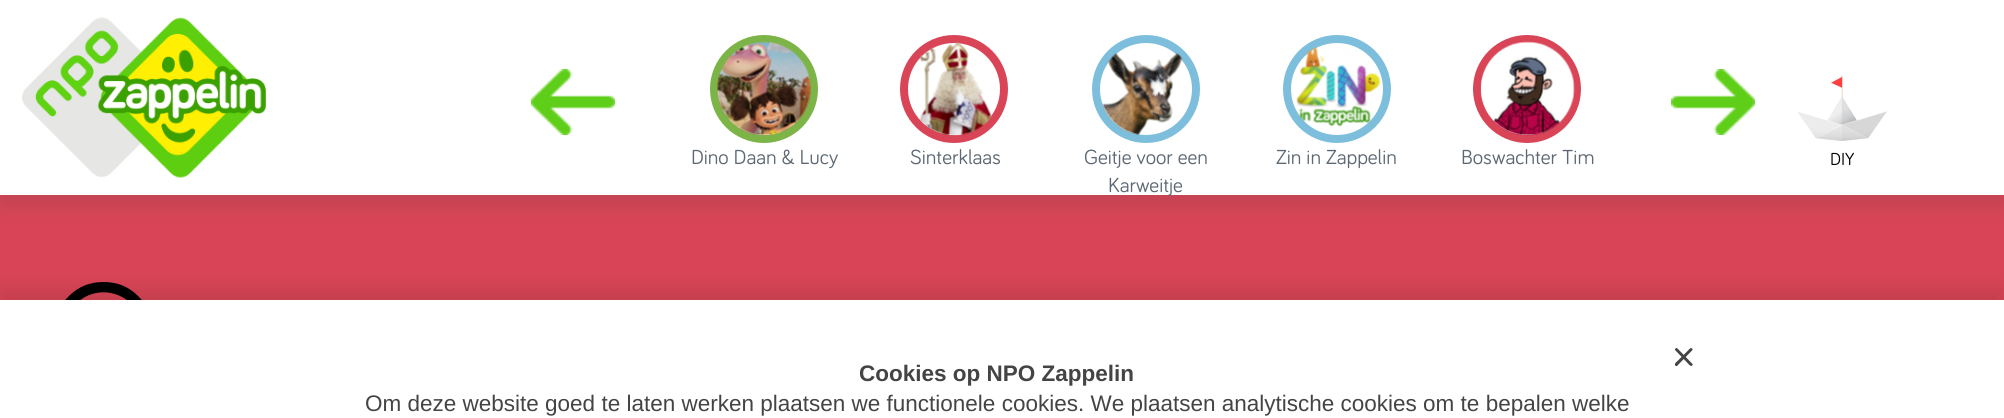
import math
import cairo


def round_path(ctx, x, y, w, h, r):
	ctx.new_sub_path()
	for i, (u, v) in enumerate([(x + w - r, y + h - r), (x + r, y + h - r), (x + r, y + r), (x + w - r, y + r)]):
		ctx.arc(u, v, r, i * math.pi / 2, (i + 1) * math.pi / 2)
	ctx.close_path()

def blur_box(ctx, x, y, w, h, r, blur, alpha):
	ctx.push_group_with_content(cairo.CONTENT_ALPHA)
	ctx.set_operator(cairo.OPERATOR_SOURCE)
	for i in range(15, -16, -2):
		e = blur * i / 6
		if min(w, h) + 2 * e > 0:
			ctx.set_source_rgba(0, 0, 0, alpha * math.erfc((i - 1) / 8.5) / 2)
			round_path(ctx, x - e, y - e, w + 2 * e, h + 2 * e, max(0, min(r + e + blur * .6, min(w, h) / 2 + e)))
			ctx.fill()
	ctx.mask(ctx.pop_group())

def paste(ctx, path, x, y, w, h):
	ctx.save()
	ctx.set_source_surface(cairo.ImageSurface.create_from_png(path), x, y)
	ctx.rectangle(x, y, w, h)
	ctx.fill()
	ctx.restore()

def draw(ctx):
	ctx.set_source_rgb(0.851, 0.271, 0.337)
	ctx.paint()
	ctx.set_source_rgb(0.133, 0.224, 0.224)
	blur_box(ctx, 0, 12, 2004, 195, 0, 10, 0.13)
	ctx.set_source_rgb(1, 1, 1)
	ctx.rectangle(0, 0, 2004, 195)
	ctx.fill()
	paste(ctx, 'media/1.png', 22, 17, 244, 161)
	paste(ctx, 'media/2.png', 531, 69, 84, 66)
	paste(ctx, 'media/3.png', 1671, 69, 84, 66)
	ctx.arc(764, 89, 50, 0, 2 * math.pi)
	ctx.set_source_rgb(0.486, 0.706, 0.278)
	ctx.set_line_width(8)
	ctx.stroke()
	paste(ctx, 'media/4.png', 717, 41, 94, 95)
	ctx.select_font_face('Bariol')
	ctx.set_font_size(21)
	ctx.set_source_rgb(0.365, 0.408, 0.451)
	ctx.move_to(691, 164)
	ctx.show_text('Dino Daan & Lucy')
	ctx.new_path()
	ctx.arc(954, 89, 50, 0, 2 * math.pi)
	ctx.set_source_rgb(0.851, 0.271, 0.337)
	ctx.stroke()
	paste(ctx, 'media/5.png', 919, 41, 73, 95)
	ctx.set_source_rgb(0.365, 0.408, 0.451)
	ctx.move_to(910, 164)
	ctx.show_text('Sinterklaas')
	ctx.new_path()
	ctx.arc(1146, 89, 50, 0, 2 * math.pi)
	ctx.set_source_rgb(0.494, 0.745, 0.867)
	ctx.stroke()
	paste(ctx, 'media/6.png', 1102, 53, 81, 82)
	ctx.set_source_rgb(0.365, 0.408, 0.451)
	ctx.move_to(1084, 164)
	ctx.show_text('Geitje voor een')
	ctx.move_to(1108, 192)
	ctx.show_text('Karweitje')
	ctx.new_path()
	ctx.arc(1337, 89, 50, 0, 2 * math.pi)
	ctx.set_source_rgb(0.494, 0.745, 0.867)
	ctx.stroke()
	paste(ctx, 'media/7.png', 1296, 47, 85, 80)
	ctx.set_source_rgb(0.365, 0.408, 0.451)
	ctx.move_to(1276, 164)
	ctx.show_text('Zin in Zappelin')
	ctx.new_path()
	ctx.arc(1527, 89, 50, 0, 2 * math.pi)
	ctx.set_source_rgb(0.851, 0.271, 0.337)
	ctx.stroke()
	paste(ctx, 'media/8.png', 1480, 41, 95, 95)
	ctx.set_source_rgb(0.365, 0.408, 0.451)
	ctx.move_to(1461, 164)
	ctx.show_text('Boswachter Tim')
	paste(ctx, 'media/9.png', 1797, 75, 90, 66)
	ctx.set_font_size(18)
	ctx.set_source_rgb(0, 0, 0)
	ctx.move_to(1830, 165)
	ctx.show_text('DIY')
	paste(ctx, 'media/10.png', 65, 282, 77, 18)
	ctx.set_source_rgb(0, 0, 0)
	blur_box(ctx, 0, 288, 2004, 119, 0, 11, 0.1)
	ctx.set_source_rgb(1, 1, 1)
	ctx.rectangle(0, 300, 2004, 118)
	ctx.fill()
	ctx.set_source_rgb(0.267, 0.267, 0.267)
	ctx.new_path()
	ctx.move_to(1677.5, 348.5)
	ctx.line_to(1692.5, 364)
	ctx.curve_to(1693, 365, 1692, 366, 1691, 366)
	ctx.curve_to(1689.5, 365.5, 1687.5, 363, 1687.5, 363)
	ctx.line_to(1675.5, 350.5)
	ctx.curve_to(1674, 349.5, 1676, 347, 1677.5, 348.5)
	ctx.close_path()
	ctx.fill()
	ctx.new_path()
	ctx.move_to(1692, 350.5)
	ctx.line_to(1677, 366)
	ctx.curve_to(1676, 366.5, 1674.5, 365.5, 1675, 364)
	ctx.curve_to(1675, 363, 1677.5, 361, 1677.5, 361)
	ctx.line_to(1690, 348.5)
	ctx.curve_to(1691.5, 347, 1693.5, 349.5, 1692, 350.5)
	ctx.close_path()
	ctx.fill()
	ctx.select_font_face('Liberation Sans', cairo.FONT_SLANT_NORMAL, cairo.FONT_WEIGHT_BOLD)
	ctx.set_font_size(22.5)
	ctx.move_to(859, 381)
	ctx.show_text('Cookies op NPO Zappelin')
	ctx.select_font_face('Liberation Sans')
	ctx.move_to(365, 411)
	ctx.show_text('Om deze website goed te laten werken plaatsen we functionele cookies. We plaatsen analytische cookies om te bepalen welke')


surface = cairo.ImageSurface(cairo.FORMAT_RGB24, 2004, 418)
ctx = cairo.Context(surface)
options = cairo.FontOptions()
options.set_hint_metrics(cairo.HINT_METRICS_OFF)
options.set_hint_style(cairo.HINT_STYLE_NONE)
ctx.set_font_options(options)
ctx.set_miter_limit(4)
draw(ctx)
surface.write_to_png('image.png')
